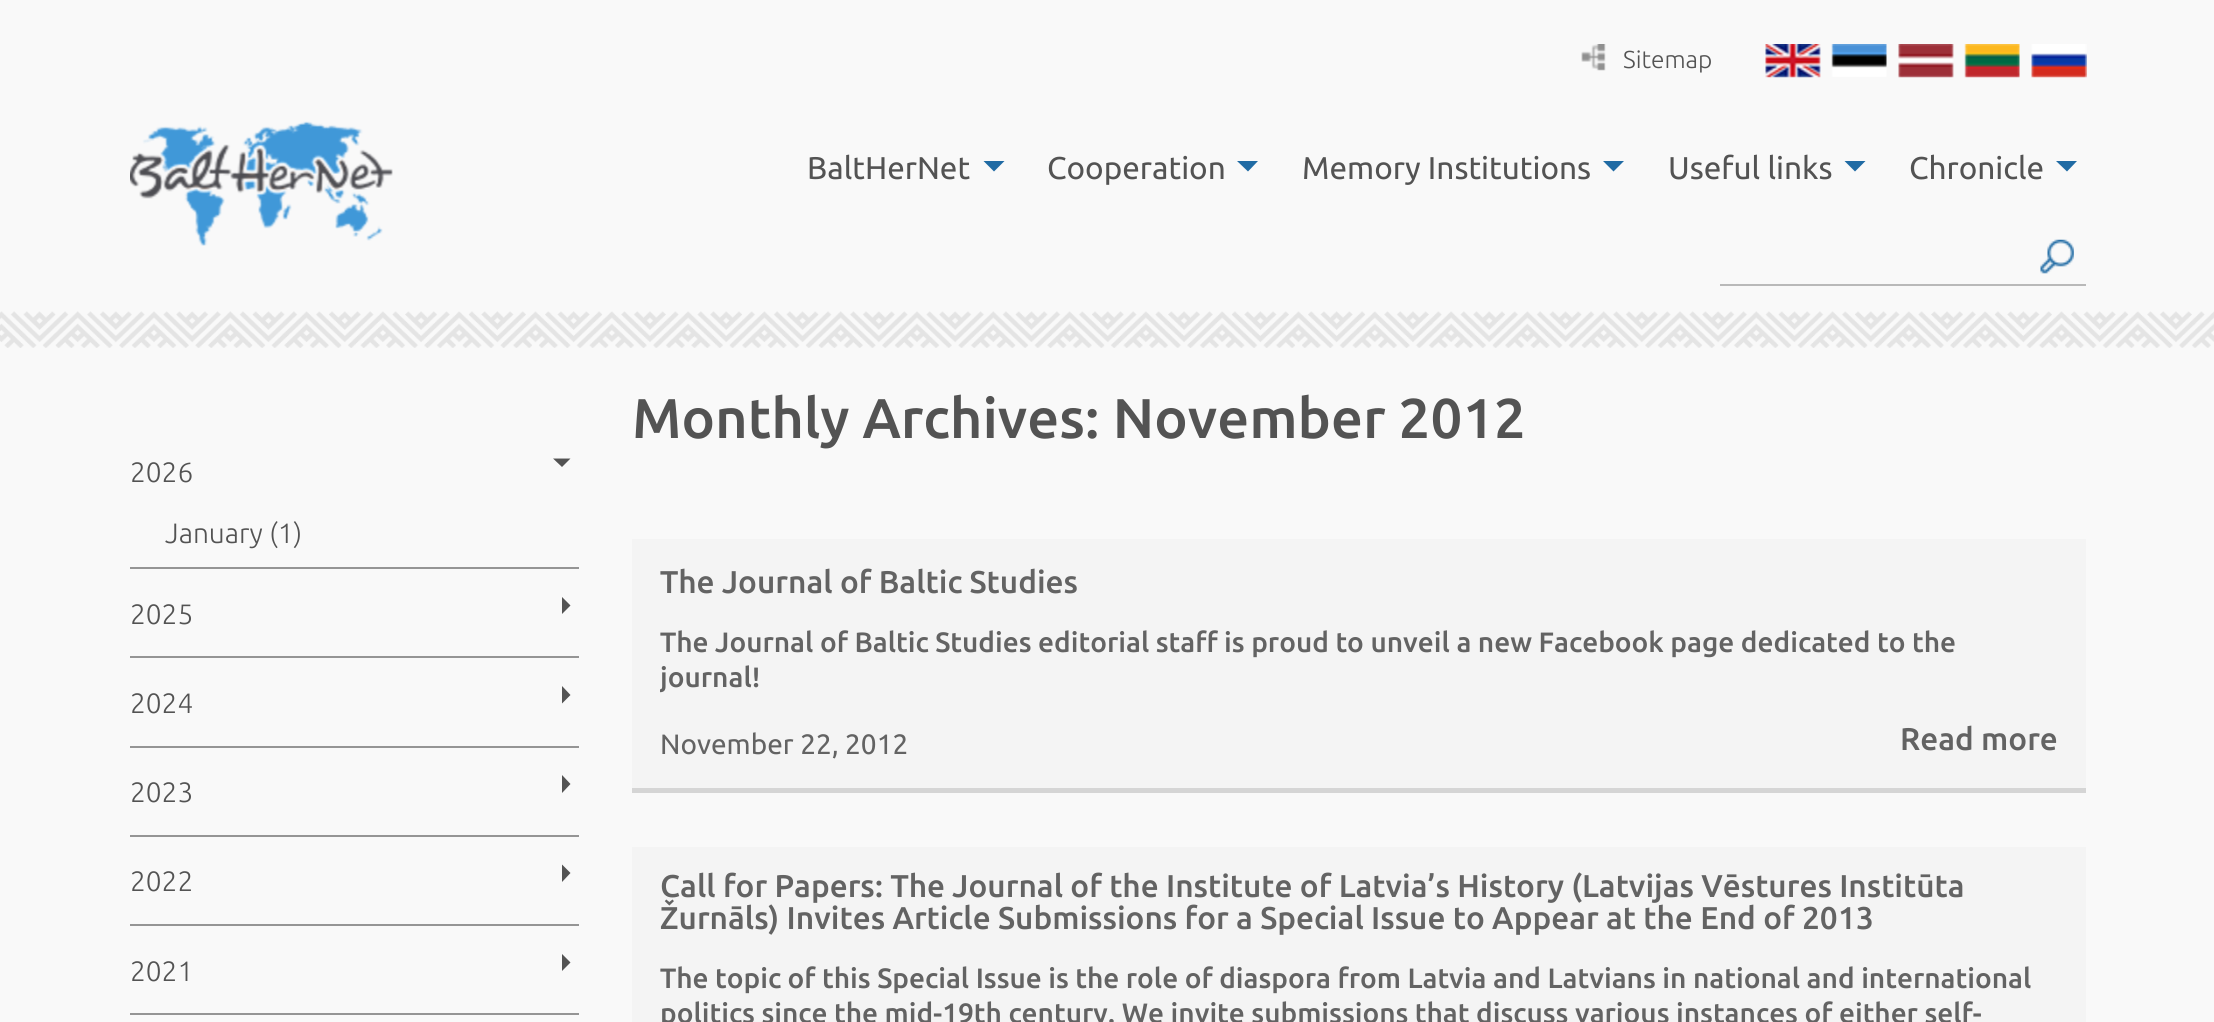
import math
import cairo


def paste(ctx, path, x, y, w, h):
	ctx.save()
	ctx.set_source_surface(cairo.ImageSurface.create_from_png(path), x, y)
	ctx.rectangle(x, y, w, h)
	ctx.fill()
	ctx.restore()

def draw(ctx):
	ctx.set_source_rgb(0.976, 0.976, 0.976)
	ctx.paint()
	paste(ctx, 'media/1.png', 0, 311, 2214, 37)
	paste(ctx, 'media/2.png', 130, 121, 263, 125)
	paste(ctx, 'media/3.png', 1581, 44, 25, 27)
	ctx.select_font_face('Ubuntu Light')
	ctx.set_font_size(24.5)
	ctx.set_source_rgb(0.325, 0.325, 0.325)
	ctx.move_to(1623, 68)
	ctx.show_text('Sitemap')
	paste(ctx, 'media/4.png', 1765, 44, 56, 34)
	paste(ctx, 'media/5.png', 1831, 44, 56, 33)
	paste(ctx, 'media/6.png', 1898, 44, 56, 34)
	paste(ctx, 'media/7.png', 1964, 44, 56, 34)
	paste(ctx, 'media/8.png', 2031, 44, 56, 34)
	ctx.select_font_face('Ubuntu')
	ctx.set_font_size(31.5)
	ctx.move_to(807, 179)
	ctx.show_text('BaltHerNet')
	ctx.set_source_rgb(0.125, 0.42, 0.643)
	ctx.new_path()
	ctx.move_to(983.5, 161)
	ctx.line_to(1004.5, 161)
	ctx.line_to(994, 171.5)
	ctx.close_path()
	ctx.fill()
	ctx.set_source_rgb(0.325, 0.325, 0.325)
	ctx.move_to(1047, 179)
	ctx.show_text('Cooperation')
	ctx.set_source_rgb(0.125, 0.42, 0.643)
	ctx.new_path()
	ctx.move_to(1237, 161)
	ctx.line_to(1258, 161)
	ctx.line_to(1248, 171.5)
	ctx.close_path()
	ctx.fill()
	ctx.set_source_rgb(0.325, 0.325, 0.325)
	ctx.move_to(1302, 179)
	ctx.show_text('Memory Institutions')
	ctx.set_source_rgb(0.125, 0.42, 0.643)
	ctx.new_path()
	ctx.move_to(1603, 161)
	ctx.line_to(1624, 161)
	ctx.line_to(1613.5, 171.5)
	ctx.close_path()
	ctx.fill()
	ctx.set_source_rgb(0.325, 0.325, 0.325)
	ctx.move_to(1668, 179)
	ctx.show_text('Useful links')
	ctx.set_source_rgb(0.125, 0.42, 0.643)
	ctx.new_path()
	ctx.move_to(1844.5, 161)
	ctx.line_to(1865.5, 161)
	ctx.line_to(1855, 171.5)
	ctx.close_path()
	ctx.fill()
	ctx.set_source_rgb(0.325, 0.325, 0.325)
	ctx.move_to(1909, 179)
	ctx.show_text('Chronicle')
	ctx.set_source_rgb(0.125, 0.42, 0.643)
	ctx.new_path()
	ctx.move_to(2056, 161)
	ctx.line_to(2077, 161)
	ctx.line_to(2067, 171.5)
	ctx.close_path()
	ctx.fill()
	paste(ctx, 'media/9.png', 2040, 239, 34, 35)
	ctx.set_source_rgb(0.725, 0.725, 0.725)
	ctx.rectangle(1720, 284, 366, 2)
	ctx.fill()
	ctx.select_font_face('Ubuntu Light')
	ctx.set_font_size(28)
	ctx.set_source_rgb(0.325, 0.325, 0.325)
	ctx.move_to(130, 482)
	ctx.show_text('2026')
	ctx.new_path()
	ctx.move_to(553, 458.5)
	ctx.line_to(570.5, 458.5)
	ctx.line_to(562, 467)
	ctx.close_path()
	ctx.fill()
	ctx.move_to(165, 543)
	ctx.show_text('January (1)')
	ctx.set_source_rgb(0.584, 0.584, 0.584)
	ctx.rectangle(130, 567, 449, 2)
	ctx.fill()
	ctx.set_source_rgb(0.325, 0.325, 0.325)
	ctx.move_to(130, 624)
	ctx.show_text('2025')
	ctx.new_path()
	ctx.move_to(562, 614)
	ctx.line_to(562, 597)
	ctx.line_to(570.5, 605.5)
	ctx.close_path()
	ctx.fill()
	ctx.set_source_rgb(0.584, 0.584, 0.584)
	ctx.rectangle(130, 656, 449, 2)
	ctx.fill()
	ctx.set_source_rgb(0.325, 0.325, 0.325)
	ctx.move_to(130, 713)
	ctx.show_text('2024')
	ctx.new_path()
	ctx.move_to(562, 703.5)
	ctx.line_to(562, 686)
	ctx.line_to(570.5, 695)
	ctx.close_path()
	ctx.fill()
	ctx.set_source_rgb(0.584, 0.584, 0.584)
	ctx.rectangle(130, 746, 449, 2)
	ctx.fill()
	ctx.set_source_rgb(0.325, 0.325, 0.325)
	ctx.move_to(130, 802)
	ctx.show_text('2023')
	ctx.new_path()
	ctx.move_to(562, 793)
	ctx.line_to(562, 775)
	ctx.line_to(570.5, 784)
	ctx.close_path()
	ctx.fill()
	ctx.set_source_rgb(0.584, 0.584, 0.584)
	ctx.rectangle(130, 835, 449, 2)
	ctx.fill()
	ctx.set_source_rgb(0.325, 0.325, 0.325)
	ctx.move_to(130, 891)
	ctx.show_text('2022')
	ctx.new_path()
	ctx.move_to(562, 882)
	ctx.line_to(562, 864.5)
	ctx.line_to(570.5, 873)
	ctx.close_path()
	ctx.fill()
	ctx.set_source_rgb(0.584, 0.584, 0.584)
	ctx.rectangle(130, 924, 449, 2)
	ctx.fill()
	ctx.set_source_rgb(0.325, 0.325, 0.325)
	ctx.move_to(130, 981)
	ctx.show_text('2021')
	ctx.new_path()
	ctx.move_to(562, 971)
	ctx.line_to(562, 954)
	ctx.line_to(570.5, 962.5)
	ctx.close_path()
	ctx.fill()
	ctx.set_source_rgb(0.584, 0.584, 0.584)
	ctx.rectangle(130, 1013, 449, 2)
	ctx.fill()
	ctx.select_font_face('Ubuntu Medium')
	ctx.set_font_size(56)
	ctx.set_source_rgb(0.325, 0.325, 0.325)
	ctx.move_to(632, 438)
	ctx.show_text('Monthly Archives: November 2012')
	ctx.set_source_rgb(0.957, 0.957, 0.957)
	ctx.rectangle(632, 539, 1454, 249)
	ctx.fill()
	ctx.set_source_rgb(0.835, 0.835, 0.835)
	ctx.rectangle(632, 788, 1454, 5)
	ctx.fill()
	ctx.set_font_size(31.5)
	ctx.set_source_rgb(0.388, 0.388, 0.388)
	ctx.move_to(660, 593)
	ctx.show_text('The Journal of Baltic Studies')
	ctx.set_font_size(28)
	ctx.move_to(660, 652)
	ctx.show_text('The Journal of Baltic Studies editorial staff is proud to unveil a new Facebook page dedicated to the')
	ctx.save()
	ctx.rectangle(660, 625, 1398, 70)
	ctx.clip()
	ctx.move_to(660, 687)
	ctx.show_text('journal!')
	ctx.restore()
	ctx.select_font_face('Ubuntu')
	ctx.move_to(660, 754)
	ctx.show_text('November 22, 2012')
	ctx.select_font_face('Ubuntu Medium')
	ctx.set_font_size(31.5)
	ctx.move_to(1900, 750)
	ctx.show_text('Read more')
	ctx.set_source_rgb(0.957, 0.957, 0.957)
	ctx.rectangle(632, 847, 1454, 175)
	ctx.fill()
	ctx.set_source_rgb(0.388, 0.388, 0.388)
	ctx.move_to(660, 897)
	ctx.show_text('Call for Papers: The Journal of the Institute of Latvia’s History (Latvijas Vēstures Institūta')
	ctx.move_to(660, 929)
	ctx.show_text('Žurnāls) Invites Article Submissions for a Special Issue to Appear at the End of 2013')
	ctx.set_font_size(28)
	ctx.move_to(660, 988)
	ctx.show_text('The topic of this Special Issue is the role of diaspora from Latvia and Latvians in national and international')
	ctx.move_to(660, 1023)
	ctx.show_text('politics since the mid-19th century. We invite submissions that discuss various instances of either self-')


surface = cairo.ImageSurface(cairo.FORMAT_RGB24, 2214, 1022)
ctx = cairo.Context(surface)
options = cairo.FontOptions()
options.set_hint_metrics(cairo.HINT_METRICS_OFF)
options.set_hint_style(cairo.HINT_STYLE_NONE)
ctx.set_font_options(options)
ctx.set_miter_limit(4)
draw(ctx)
surface.write_to_png('image.png')
